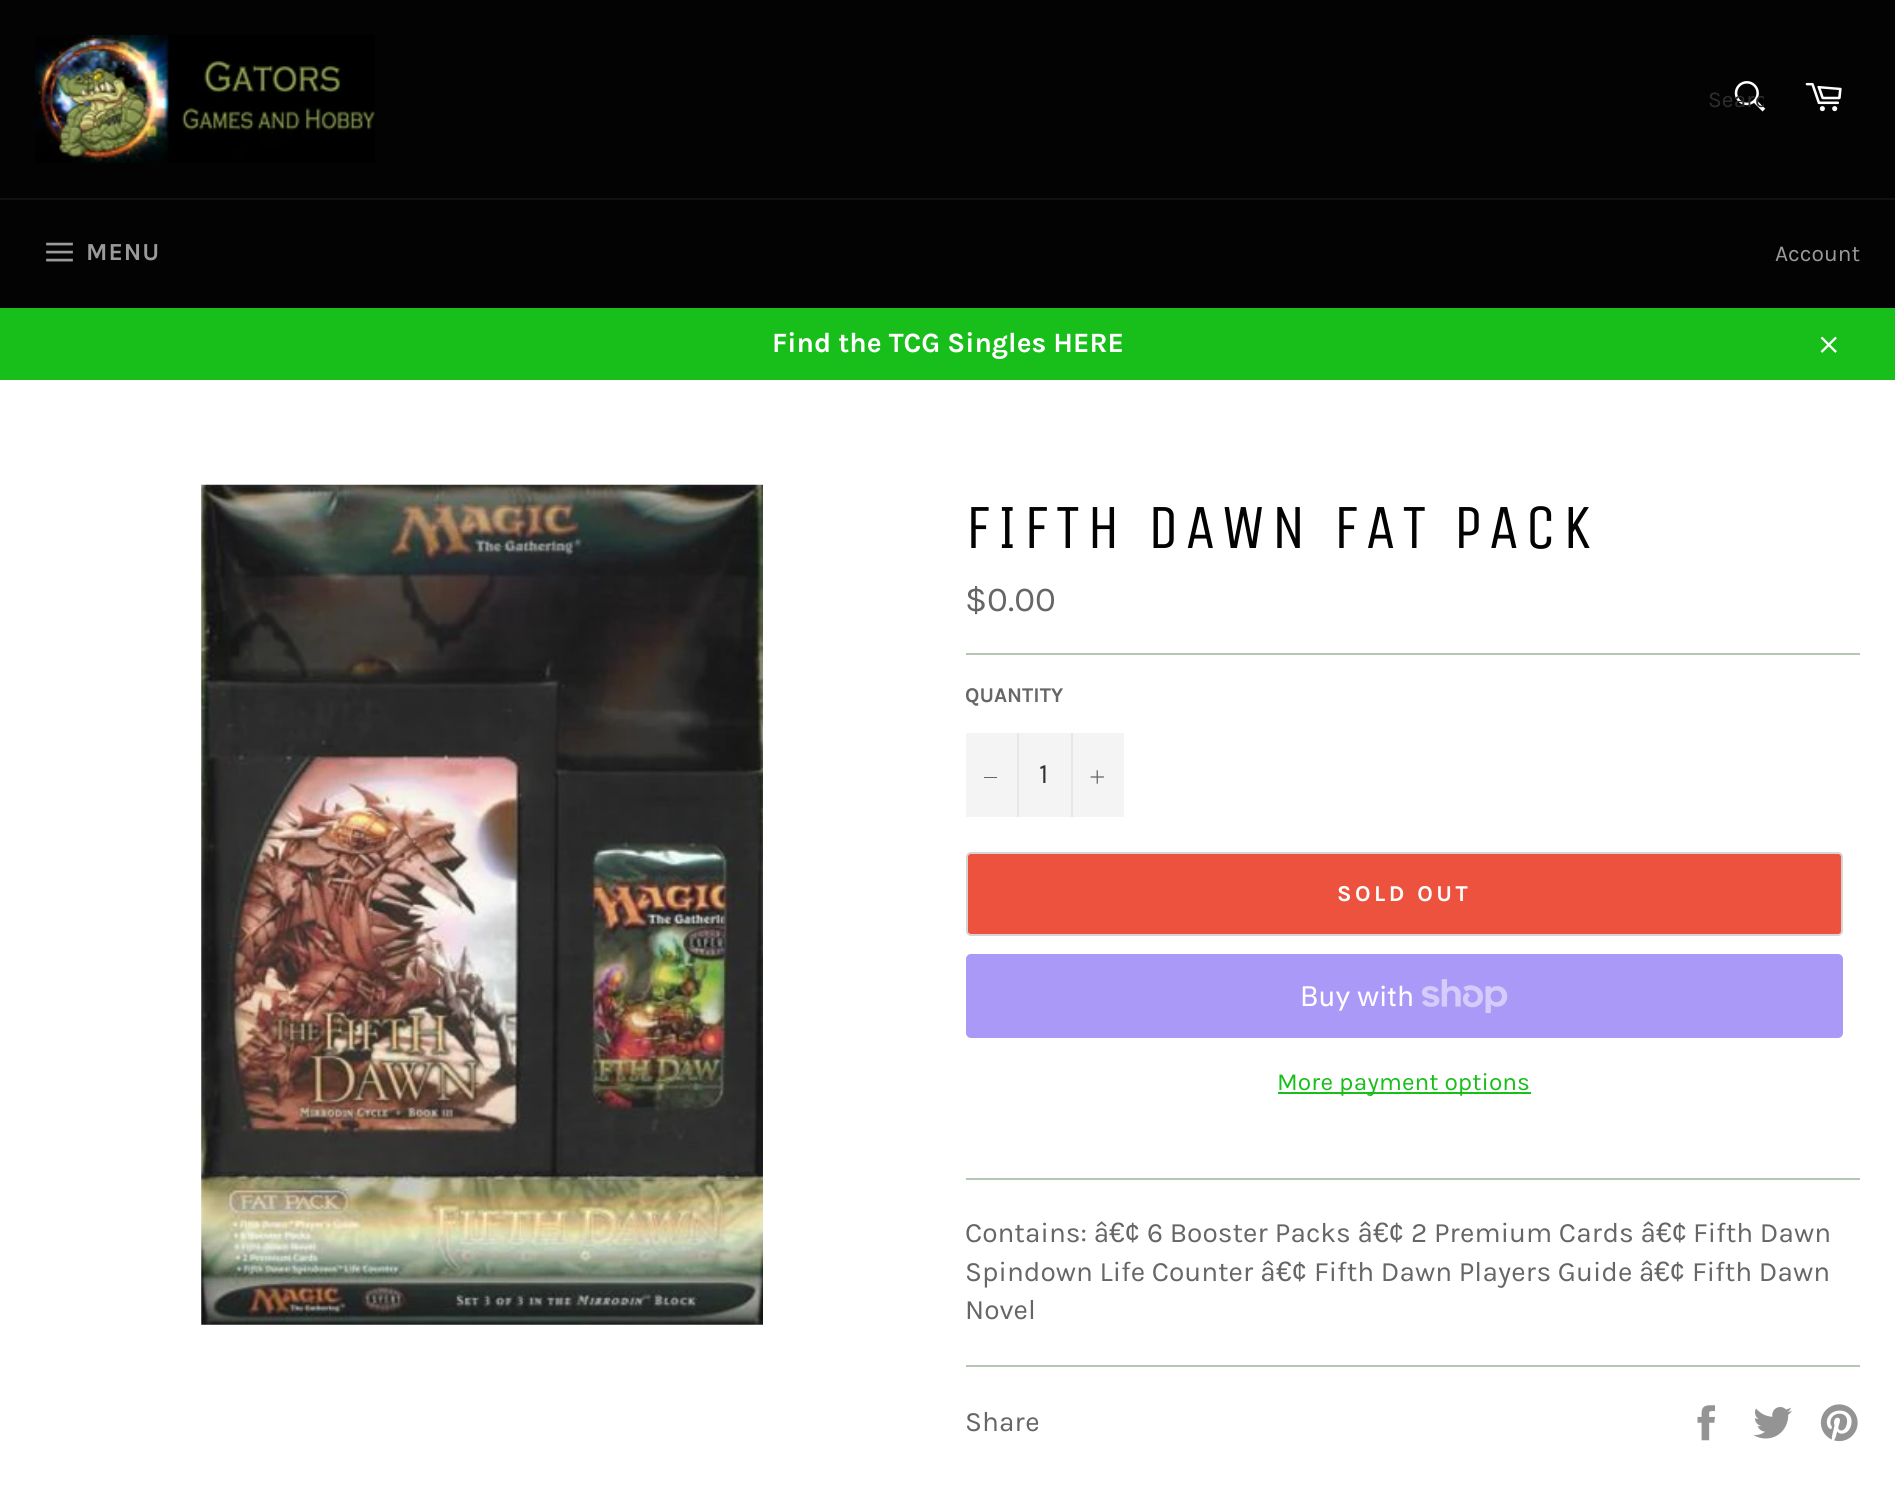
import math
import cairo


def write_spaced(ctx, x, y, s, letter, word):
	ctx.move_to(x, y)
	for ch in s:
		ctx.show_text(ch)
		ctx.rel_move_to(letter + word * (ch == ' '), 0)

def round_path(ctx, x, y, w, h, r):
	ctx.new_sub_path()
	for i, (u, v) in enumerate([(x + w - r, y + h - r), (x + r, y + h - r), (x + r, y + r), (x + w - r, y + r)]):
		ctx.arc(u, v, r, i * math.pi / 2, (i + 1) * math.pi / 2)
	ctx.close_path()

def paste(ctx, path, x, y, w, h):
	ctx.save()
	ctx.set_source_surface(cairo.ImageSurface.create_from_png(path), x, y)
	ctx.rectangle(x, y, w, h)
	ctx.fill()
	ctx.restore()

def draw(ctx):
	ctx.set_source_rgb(0.012, 0.012, 0.012)
	ctx.paint()
	paste(ctx, 'media/1.png', 35, 35, 340, 128)
	paste(ctx, 'media/2.png', 1734, 81, 32, 31)
	ctx.save()
	ctx.rectangle(1708, 86, 56, 26)
	ctx.clip()
	ctx.select_font_face('Karla')
	ctx.set_font_size(22.75)
	ctx.set_source_rgb(0.176, 0.176, 0.176)
	ctx.move_to(1708, 107)
	ctx.show_text('Searc')
	ctx.restore()
	paste(ctx, 'media/3.png', 1805, 82, 37, 30)
	ctx.set_source_rgb(0.063, 0.063, 0.063)
	ctx.rectangle(0, 198, 1895, 2)
	ctx.fill()
	paste(ctx, 'media/4.png', 46, 242, 27, 20)
	ctx.select_font_face('Karla', cairo.FONT_SLANT_NORMAL, cairo.FONT_WEIGHT_BOLD)
	ctx.set_font_size(24.5)
	ctx.set_source_rgb(0.604, 0.604, 0.604)
	write_spaced(ctx, 86, 260, 'MENU', 1, 0)
	ctx.select_font_face('Karla')
	ctx.set_font_size(22.75)
	ctx.move_to(1775, 261)
	ctx.show_text('Account')
	ctx.set_source_rgb(0.094, 0.749, 0.102)
	ctx.rectangle(0, 308, 1895, 72)
	ctx.fill()
	ctx.select_font_face('Karla', cairo.FONT_SLANT_NORMAL, cairo.FONT_WEIGHT_BOLD)
	ctx.set_font_size(28)
	ctx.set_source_rgb(1, 1, 1)
	ctx.move_to(772, 352)
	ctx.show_text('Find the TCG Singles HERE')
	paste(ctx, 'media/5.png', 1820, 336, 17, 17)
	ctx.rectangle(0, 380, 1895, 1132)
	ctx.fill()
	paste(ctx, 'media/6.png', 201, 484, 562, 841)
	ctx.select_font_face('Unica One')
	ctx.set_font_size(63)
	ctx.set_source_rgb(0.012, 0.012, 0.012)
	write_spaced(ctx, 965, 548, 'FIFTH DAWN FAT PACK', 6.25, 0)
	ctx.select_font_face('Karla')
	ctx.set_font_size(35)
	ctx.set_source_rgb(0.4, 0.4, 0.4)
	ctx.move_to(965, 611)
	ctx.show_text('$0.00')
	ctx.set_source_rgb(0.714, 0.776, 0.706)
	ctx.rectangle(966, 653, 894, 2)
	ctx.fill()
	ctx.select_font_face('Karla', cairo.FONT_SLANT_NORMAL, cairo.FONT_WEIGHT_BOLD)
	ctx.set_font_size(21)
	ctx.set_source_rgb(0.4, 0.4, 0.4)
	ctx.move_to(965, 702)
	ctx.show_text('QUANTITY')
	ctx.set_source_rgb(0.957, 0.957, 0.957)
	ctx.rectangle(966, 733, 158, 84)
	ctx.fill()
	ctx.set_source_rgb(0.906, 0.906, 0.906)
	ctx.rectangle(1017, 733, 2, 84)
	ctx.fill()
	ctx.set_source_rgb(0.4, 0.4, 0.4)
	ctx.rectangle(984, 777, 13, 1)
	ctx.fill()
	ctx.select_font_face('Karla')
	ctx.set_font_size(28)
	ctx.set_source_rgb(0.2, 0.2, 0.2)
	ctx.move_to(1039, 783)
	ctx.show_text('1')
	ctx.set_source_rgb(0.906, 0.906, 0.906)
	ctx.rectangle(1071, 733, 2, 84)
	ctx.fill()
	paste(ctx, 'media/7.png', 1090, 770, 14, 14)
	ctx.set_source_rgb(0.925, 0.322, 0.243)
	round_path(ctx, 967, 853, 875, 82, 4)
	ctx.fill_preserve()
	ctx.set_source_rgb(0.835, 0.835, 0.835)
	ctx.stroke()
	ctx.select_font_face('Karla', cairo.FONT_SLANT_NORMAL, cairo.FONT_WEIGHT_BOLD)
	ctx.set_font_size(22.75)
	ctx.set_source_rgb(1, 1, 1)
	write_spaced(ctx, 1337, 901, 'SOLD OUT', 3.5, 0)
	ctx.set_source_rgb(0.667, 0.6, 0.961)
	round_path(ctx, 966, 954, 877, 84, 5)
	ctx.fill()
	ctx.select_font_face('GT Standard')
	ctx.set_font_size(28)
	ctx.set_source_rgb(1, 1, 1)
	ctx.move_to(1300, 1006)
	ctx.show_text('Buy with')
	paste(ctx, 'media/8.png', 1422, 979, 86, 34)
	ctx.set_source_rgb(0.094, 0.749, 0.102)
	ctx.rectangle(1278, 1092, 253, 2)
	ctx.fill()
	ctx.select_font_face('Karla')
	ctx.set_font_size(24.5)
	ctx.move_to(1277, 1090)
	ctx.show_text('More payment options')
	ctx.set_source_rgb(0.714, 0.776, 0.706)
	ctx.rectangle(966, 1178, 894, 2)
	ctx.fill()
	ctx.set_font_size(28)
	ctx.set_source_rgb(0.4, 0.4, 0.4)
	ctx.move_to(965, 1242)
	ctx.show_text('Contains: â')
	ctx.select_font_face('Liberation Sans')
	ctx.move_to(1109, 1242)
	ctx.show_text('€¢')
	ctx.select_font_face('Karla')
	ctx.move_to(1147, 1242)
	ctx.show_text('6 Booster Packs â')
	ctx.select_font_face('Liberation Sans')
	ctx.move_to(1373, 1242)
	ctx.show_text('€¢')
	ctx.select_font_face('Karla')
	ctx.move_to(1411, 1242)
	ctx.show_text('2 Premium Cards â')
	ctx.select_font_face('Liberation Sans')
	ctx.move_to(1656, 1242)
	ctx.show_text('€¢')
	ctx.select_font_face('Karla')
	ctx.move_to(1693, 1242)
	ctx.show_text('Fifth Dawn')
	ctx.move_to(965, 1281)
	ctx.show_text('Spindown Life Counter â')
	ctx.select_font_face('Liberation Sans')
	ctx.move_to(1276, 1281)
	ctx.show_text('€¢')
	ctx.select_font_face('Karla')
	ctx.move_to(1314, 1281)
	ctx.show_text('Fifth Dawn Players Guide â')
	ctx.select_font_face('Liberation Sans')
	ctx.move_to(1654, 1281)
	ctx.show_text('€¢')
	ctx.select_font_face('Karla')
	ctx.move_to(1692, 1281)
	ctx.show_text('Fifth Dawn')
	ctx.move_to(965, 1319)
	ctx.show_text('Novel')
	ctx.set_source_rgb(0.714, 0.776, 0.706)
	ctx.rectangle(966, 1365, 894, 2)
	ctx.fill()
	ctx.set_source_rgb(0.4, 0.4, 0.4)
	ctx.move_to(965, 1431)
	ctx.show_text('Share')
	paste(ctx, 'media/9.png', 1697, 1405, 18, 36)
	paste(ctx, 'media/10.png', 1753, 1407, 39, 32)
	paste(ctx, 'media/11.png', 1820, 1404, 38, 38)


surface = cairo.ImageSurface(cairo.FORMAT_RGB24, 1895, 1512)
ctx = cairo.Context(surface)
options = cairo.FontOptions()
options.set_hint_metrics(cairo.HINT_METRICS_OFF)
options.set_hint_style(cairo.HINT_STYLE_NONE)
ctx.set_font_options(options)
ctx.set_miter_limit(4)
draw(ctx)
surface.write_to_png('image.png')
